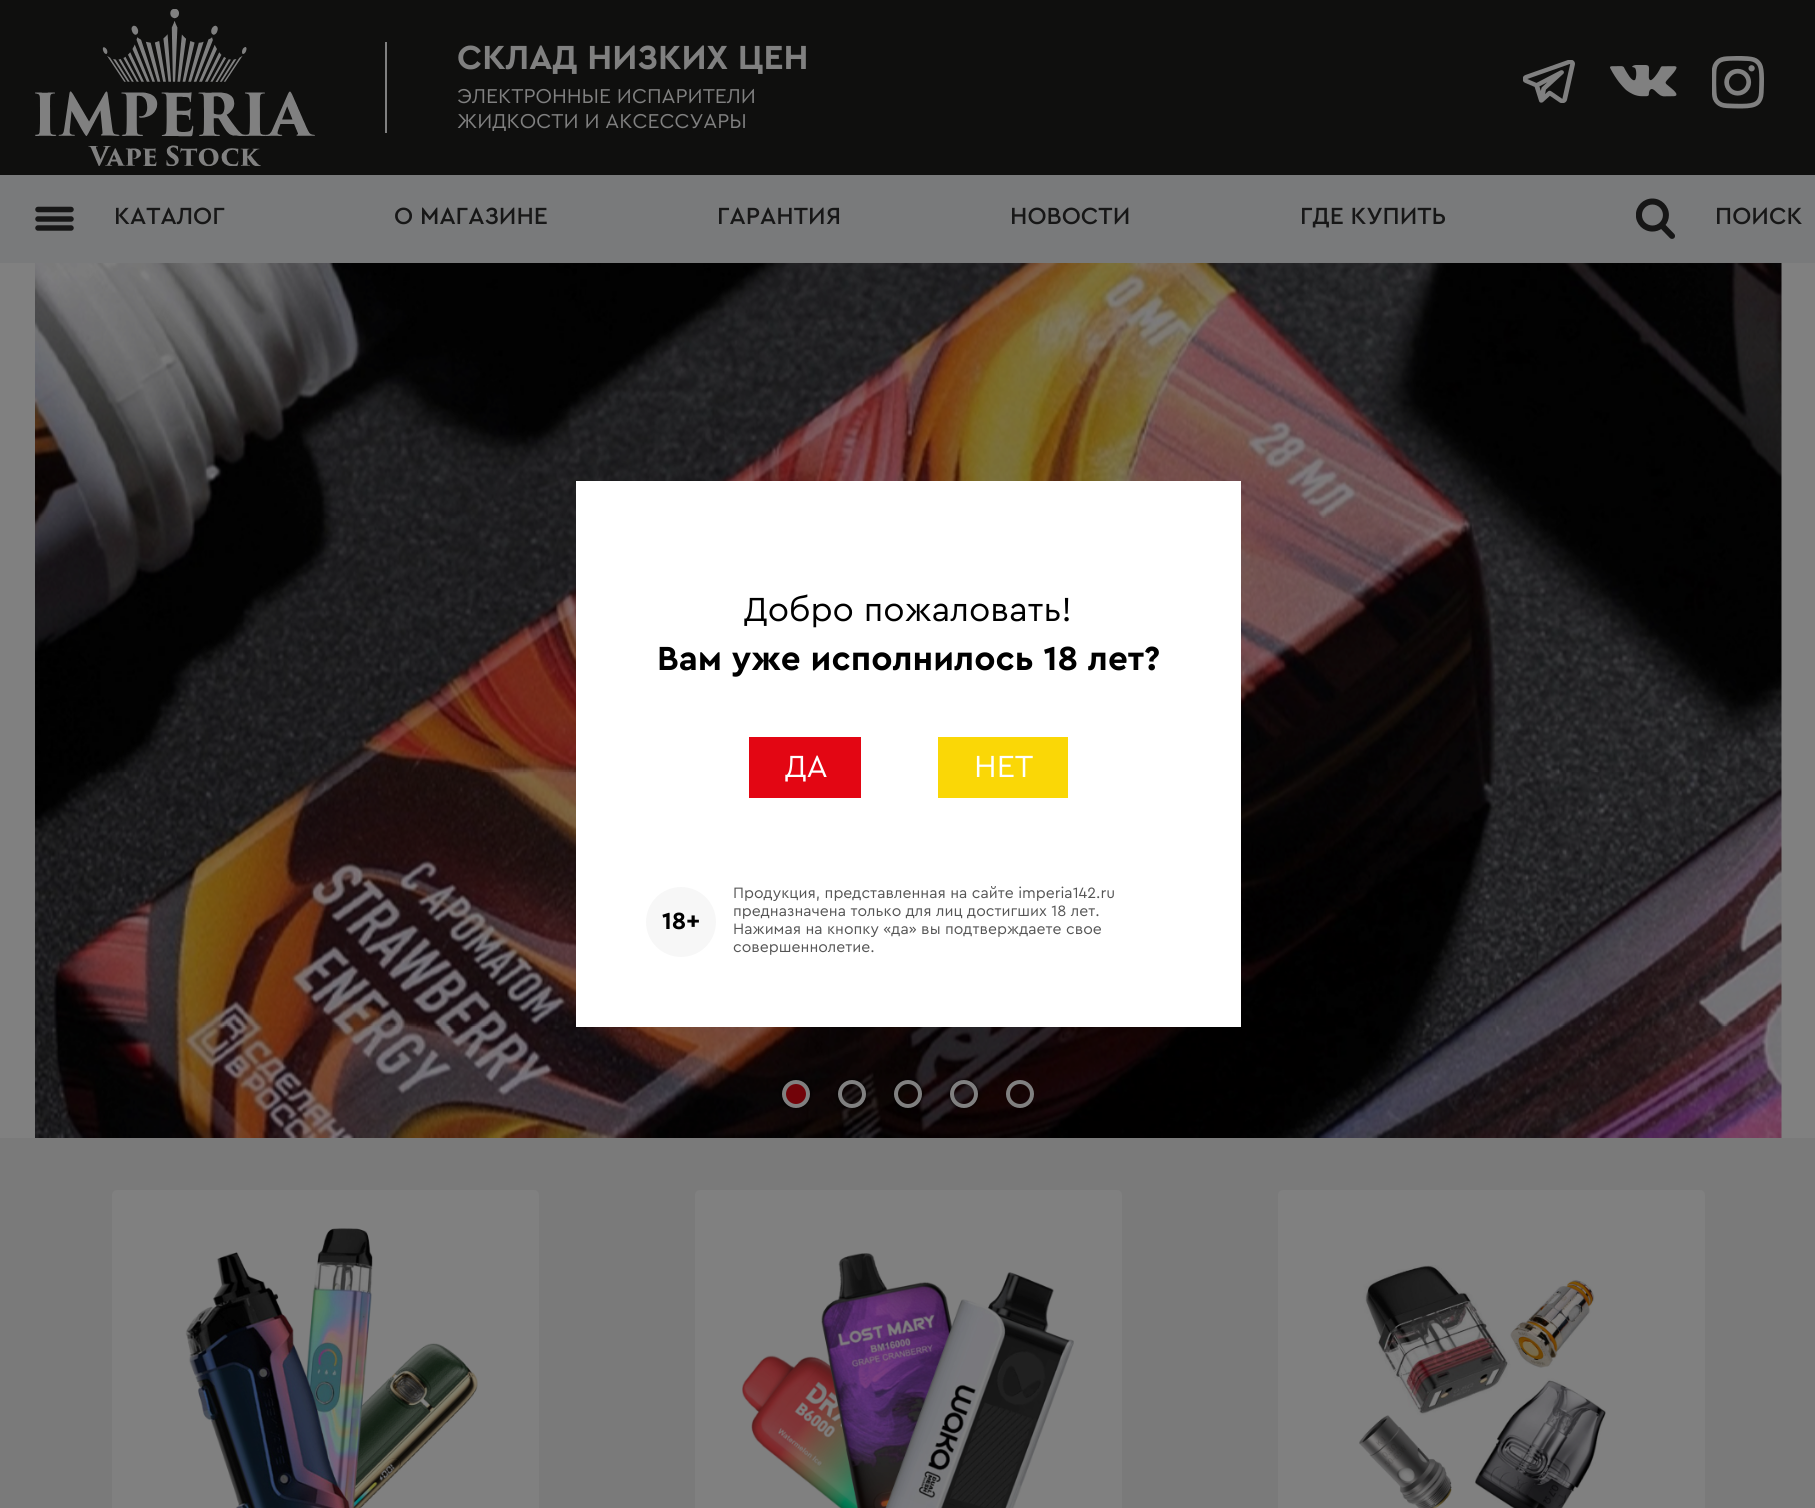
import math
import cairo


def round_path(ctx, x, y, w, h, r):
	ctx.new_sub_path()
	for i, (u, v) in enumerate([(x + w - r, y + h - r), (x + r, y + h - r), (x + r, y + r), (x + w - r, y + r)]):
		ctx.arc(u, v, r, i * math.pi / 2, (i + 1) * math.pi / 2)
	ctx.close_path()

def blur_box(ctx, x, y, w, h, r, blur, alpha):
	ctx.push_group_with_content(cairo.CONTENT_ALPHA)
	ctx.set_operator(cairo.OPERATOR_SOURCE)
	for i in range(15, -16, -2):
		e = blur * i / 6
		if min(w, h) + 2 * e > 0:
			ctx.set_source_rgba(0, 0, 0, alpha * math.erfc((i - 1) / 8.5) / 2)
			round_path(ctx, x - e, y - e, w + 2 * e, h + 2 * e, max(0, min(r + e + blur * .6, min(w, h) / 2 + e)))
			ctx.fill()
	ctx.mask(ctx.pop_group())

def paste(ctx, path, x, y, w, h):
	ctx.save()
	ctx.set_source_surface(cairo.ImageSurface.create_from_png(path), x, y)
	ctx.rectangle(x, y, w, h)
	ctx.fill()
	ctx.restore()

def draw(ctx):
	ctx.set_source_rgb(0.502, 0.502, 0.502)
	ctx.paint()
	ctx.set_source_rgb(0.059, 0.059, 0.055)
	ctx.rectangle(0, 0, 1815, 175)
	ctx.fill()
	paste(ctx, 'media/1.png', 35, 9, 280, 157)
	ctx.set_source_rgb(0.502, 0.502, 0.502)
	ctx.rectangle(385, 42, 2, 91)
	ctx.fill()
	ctx.select_font_face('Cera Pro', cairo.FONT_SLANT_NORMAL, cairo.FONT_WEIGHT_BOLD)
	ctx.set_font_size(35)
	ctx.move_to(457, 69)
	ctx.show_text('СКЛАД НИЗКИХ ЦЕН')
	ctx.select_font_face('Cera Pro')
	ctx.set_font_size(21)
	ctx.move_to(457, 103)
	ctx.show_text('ЭЛЕКТРОННЫЕ ИСПАРИТЕЛИ')
	ctx.move_to(457, 128)
	ctx.show_text('ЖИДКОСТИ И АКСЕССУАРЫ')
	paste(ctx, 'media/2.png', 1523, 60, 52, 43)
	paste(ctx, 'media/3.png', 1610, 65, 67, 32)
	paste(ctx, 'media/4.png', 1712, 56, 52, 53)
	ctx.set_source_rgb(0.475, 0.478, 0.482)
	ctx.rectangle(0, 175, 1815, 88)
	ctx.fill()
	ctx.new_path()
	ctx.move_to(38, 209.5)
	ctx.line_to(71, 209.5)
	ctx.move_to(38, 219)
	ctx.line_to(71, 219)
	ctx.move_to(38, 228)
	ctx.line_to(71, 228)
	ctx.set_source_rgb(0.09, 0.09, 0.09)
	ctx.set_line_width(5.5)
	ctx.set_line_cap(cairo.LINE_CAP_ROUND)
	ctx.set_line_join(cairo.LINE_JOIN_ROUND)
	ctx.stroke()
	ctx.select_font_face('Cera Pro Medium')
	ctx.set_font_size(24.5)
	for x, y, s in [
		(114, 224, 'КАТАЛОГ'),
		(394, 224, 'О МАГАЗИНЕ'),
		(717, 224, 'ГАРАНТИЯ'),
		(1010, 224, 'НОВОСТИ'),
		(1300, 224, 'ГДЕ КУПИТЬ'),
	]:
		ctx.move_to(x, y)
		ctx.show_text(s)
	paste(ctx, 'media/5.png', 1636, 198, 39, 41)
	ctx.move_to(1715, 224)
	ctx.show_text('ПОИСК')
	paste(ctx, 'media/6.png', 35, 263, 1747, 875)
	ctx.set_source_rgb(0, 0, 0)
	blur_box(ctx, 782, 1080, 28, 28, 14, 2, 1)
	ctx.set_source_rgb(0.447, 0.012, 0.039)
	ctx.arc(796, 1094, 12, 0, 2 * math.pi)
	ctx.fill_preserve()
	ctx.set_source_rgb(0.502, 0.502, 0.502)
	ctx.set_line_width(4)
	ctx.set_line_cap(cairo.LINE_CAP_BUTT)
	ctx.set_line_join(cairo.LINE_JOIN_MITER)
	ctx.stroke()
	ctx.save()
	ctx.set_fill_rule(cairo.FILL_RULE_EVEN_ODD)
	ctx.new_path()
	ctx.move_to(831, 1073)
	ctx.line_to(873, 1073)
	ctx.line_to(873, 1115)
	ctx.line_to(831, 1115)
	ctx.close_path()
	ctx.move_to(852, 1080)
	ctx.curve_to(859.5, 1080, 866, 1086.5, 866, 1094)
	ctx.curve_to(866, 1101.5, 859.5, 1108, 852, 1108)
	ctx.curve_to(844.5, 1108, 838, 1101.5, 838, 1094)
	ctx.curve_to(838, 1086.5, 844.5, 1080, 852, 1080)
	ctx.close_path()
	ctx.clip()
	ctx.set_source_rgb(0, 0, 0)
	blur_box(ctx, 838, 1080, 28, 28, 14, 2, 1)
	ctx.restore()
	ctx.arc(852, 1094, 12, 0, 2 * math.pi)
	ctx.stroke()
	ctx.save()
	ctx.set_fill_rule(cairo.FILL_RULE_EVEN_ODD)
	ctx.new_path()
	ctx.move_to(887, 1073)
	ctx.line_to(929, 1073)
	ctx.line_to(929, 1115)
	ctx.line_to(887, 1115)
	ctx.close_path()
	ctx.move_to(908, 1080)
	ctx.curve_to(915.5, 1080, 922, 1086.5, 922, 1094)
	ctx.curve_to(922, 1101.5, 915.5, 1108, 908, 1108)
	ctx.curve_to(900.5, 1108, 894, 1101.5, 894, 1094)
	ctx.curve_to(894, 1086.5, 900.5, 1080, 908, 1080)
	ctx.close_path()
	ctx.clip()
	ctx.set_source_rgb(0, 0, 0)
	blur_box(ctx, 894, 1080, 28, 28, 14, 2, 1)
	ctx.restore()
	ctx.arc(908, 1094, 12, 0, 2 * math.pi)
	ctx.stroke()
	ctx.save()
	ctx.set_fill_rule(cairo.FILL_RULE_EVEN_ODD)
	ctx.new_path()
	ctx.move_to(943, 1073)
	ctx.line_to(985, 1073)
	ctx.line_to(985, 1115)
	ctx.line_to(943, 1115)
	ctx.close_path()
	ctx.move_to(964, 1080)
	ctx.curve_to(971.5, 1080, 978, 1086.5, 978, 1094)
	ctx.curve_to(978, 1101.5, 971.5, 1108, 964, 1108)
	ctx.curve_to(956.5, 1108, 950, 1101.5, 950, 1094)
	ctx.curve_to(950, 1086.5, 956.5, 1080, 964, 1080)
	ctx.close_path()
	ctx.clip()
	ctx.set_source_rgb(0, 0, 0)
	blur_box(ctx, 950, 1080, 28, 28, 14, 2, 1)
	ctx.restore()
	ctx.arc(964, 1094, 12, 0, 2 * math.pi)
	ctx.stroke()
	ctx.arc(1020, 1094, 12, 0, 2 * math.pi)
	ctx.stroke()
	ctx.set_source_rgb(0.478, 0.478, 0.478)
	ctx.rectangle(0, 1138, 1815, 370)
	ctx.fill()
	ctx.set_source_rgb(0.502, 0.502, 0.502)
	round_path(ctx, 112, 1190, 427, 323, 5)
	ctx.fill()
	paste(ctx, 'media/7.png', 185, 1228, 293, 280)
	round_path(ctx, 695, 1190, 427, 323, 5)
	ctx.fill()
	paste(ctx, 'media/8.png', 742, 1253, 332, 255)
	round_path(ctx, 1278, 1190, 427, 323, 5)
	ctx.fill()
	paste(ctx, 'media/9.png', 1359, 1265, 247, 243)
	ctx.set_source_rgb(1, 1, 1)
	ctx.rectangle(576, 481, 665, 546)
	ctx.fill()
	ctx.select_font_face('Cera Pro')
	ctx.set_font_size(35)
	ctx.set_source_rgb(0, 0, 0)
	ctx.move_to(744, 621)
	ctx.show_text('Добро пожаловать!')
	ctx.select_font_face('Cera Pro', cairo.FONT_SLANT_NORMAL, cairo.FONT_WEIGHT_BOLD)
	ctx.move_to(657, 670)
	ctx.show_text('Вам уже исполнилось 18 лет?')
	ctx.set_source_rgb(0.89, 0.024, 0.075)
	ctx.rectangle(749, 737, 112, 61)
	ctx.fill()
	ctx.select_font_face('Cera Pro')
	ctx.set_font_size(32)
	ctx.set_source_rgb(1, 1, 1)
	ctx.move_to(785, 777)
	ctx.show_text('ДА')
	ctx.set_source_rgb(0.98, 0.843, 0.024)
	ctx.rectangle(938, 737, 130, 61)
	ctx.fill()
	ctx.set_source_rgb(1, 1, 1)
	ctx.move_to(974, 777)
	ctx.show_text('НЕТ')
	ctx.set_source_rgb(0.965, 0.965, 0.965)
	ctx.new_path()
	ctx.arc(681, 922, 35, 0, 2 * math.pi)
	ctx.fill()
	ctx.select_font_face('Cera Pro', cairo.FONT_SLANT_NORMAL, cairo.FONT_WEIGHT_BOLD)
	ctx.set_font_size(24.5)
	ctx.set_source_rgb(0, 0, 0)
	ctx.move_to(662, 929)
	ctx.show_text('18+')
	ctx.select_font_face('Cera Pro')
	ctx.set_font_size(15.75)
	ctx.set_source_rgb(0.333, 0.333, 0.333)
	for x, y, s in [
		(733, 898, 'Продукция, представленная на сайте imperia142.ru'),
		(733, 916, 'предназначена только для лиц достигших 18 лет.'),
		(733, 934, 'Нажимая на кнопку «да» вы подтверждаете свое'),
		(733, 952, 'совершеннолетие.'),
	]:
		ctx.move_to(x, y)
		ctx.show_text(s)


surface = cairo.ImageSurface(cairo.FORMAT_RGB24, 1815, 1508)
ctx = cairo.Context(surface)
options = cairo.FontOptions()
options.set_hint_metrics(cairo.HINT_METRICS_OFF)
options.set_hint_style(cairo.HINT_STYLE_NONE)
ctx.set_font_options(options)
ctx.set_miter_limit(4)
draw(ctx)
surface.write_to_png('image.png')
